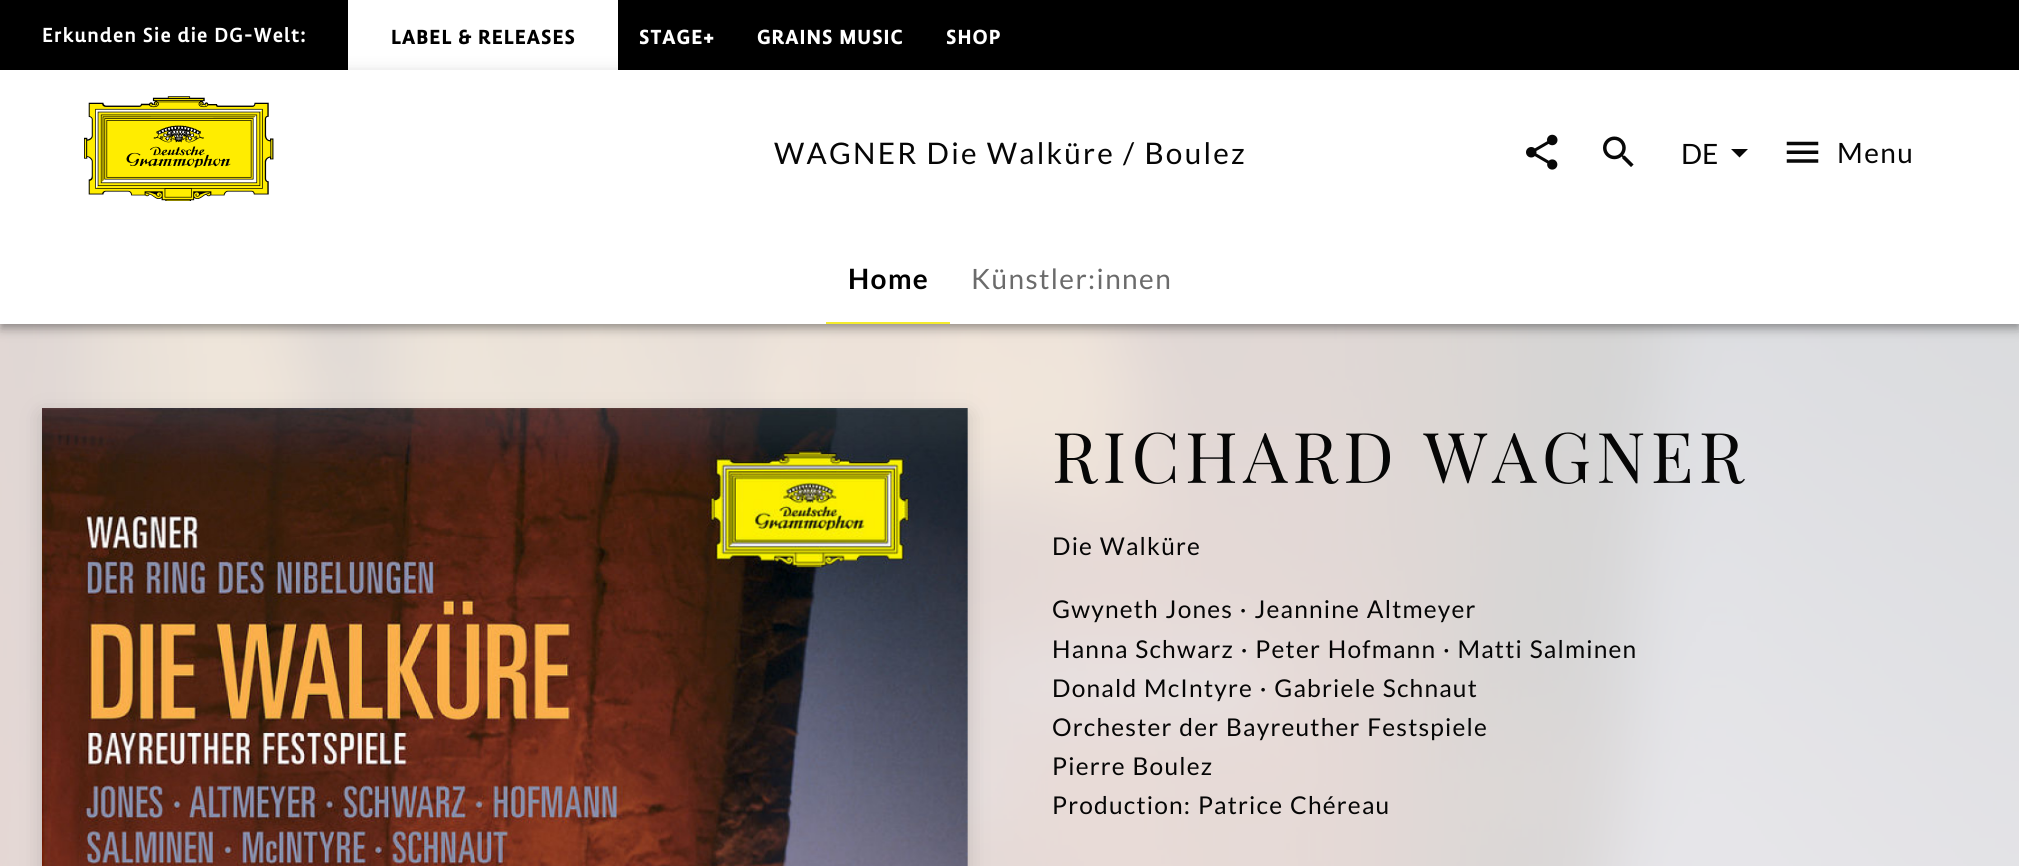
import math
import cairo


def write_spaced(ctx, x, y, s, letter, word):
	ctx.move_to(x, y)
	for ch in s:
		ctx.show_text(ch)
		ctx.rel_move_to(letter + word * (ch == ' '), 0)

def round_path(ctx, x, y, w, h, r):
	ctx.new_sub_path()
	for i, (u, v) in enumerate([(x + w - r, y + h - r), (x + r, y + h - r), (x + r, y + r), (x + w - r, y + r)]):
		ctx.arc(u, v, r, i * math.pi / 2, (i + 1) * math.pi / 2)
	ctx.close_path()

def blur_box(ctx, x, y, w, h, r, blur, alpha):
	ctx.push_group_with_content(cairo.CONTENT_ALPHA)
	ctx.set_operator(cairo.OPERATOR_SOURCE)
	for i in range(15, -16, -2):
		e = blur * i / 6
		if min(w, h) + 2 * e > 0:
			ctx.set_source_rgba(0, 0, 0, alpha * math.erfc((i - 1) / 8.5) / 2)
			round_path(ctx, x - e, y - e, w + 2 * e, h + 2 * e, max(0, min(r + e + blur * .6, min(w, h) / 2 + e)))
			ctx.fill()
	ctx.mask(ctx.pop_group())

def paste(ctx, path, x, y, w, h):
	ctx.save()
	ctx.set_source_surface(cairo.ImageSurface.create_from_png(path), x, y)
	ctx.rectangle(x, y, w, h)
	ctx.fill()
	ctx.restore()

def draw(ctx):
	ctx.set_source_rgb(0.98, 0.98, 0.98)
	ctx.paint()
	ctx.set_source_rgb(0, 0, 0)
	ctx.rectangle(0, 0, 2019, 70)
	ctx.fill()
	ctx.select_font_face('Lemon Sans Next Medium')
	ctx.set_font_size(21)
	ctx.set_source_rgb(1, 1, 1)
	write_spaced(ctx, 42, 42, 'Erkunden Sie die DG-Welt:', 1.05, 0)
	ctx.rectangle(348, 0, 270, 70)
	ctx.fill()
	ctx.select_font_face('Lemon Sans Next', cairo.FONT_SLANT_NORMAL, cairo.FONT_WEIGHT_BOLD)
	ctx.set_source_rgb(0, 0, 0)
	write_spaced(ctx, 391, 44, 'LABEL & RELEASES', 1.05, 0)
	ctx.set_source_rgb(1, 1, 1)
	for x, y, s in [
		(639, 44, 'STAGE+'),
		(757, 44, 'GRAINS MUSIC'),
		(946, 44, 'SHOP'),
	]:
		write_spaced(ctx, x, y, s, 1.05, 0)
	paste(ctx, 'media/5.png', 0, 324, 2019, 542)
	ctx.set_source_rgb(0, 0, 0)
	blur_box(ctx, 0, 72, 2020, 254, 0, 9, 0.12)
	blur_box(ctx, 0, 77, 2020, 254, 0, 4.5, 0.14)
	blur_box(ctx, 2, 75, 2016, 251, 0, 3.5, 0.2)
	ctx.set_source_rgb(1, 1, 1)
	ctx.rectangle(0, 70, 2019, 254)
	ctx.fill()
	paste(ctx, 'media/1.png', 84, 96, 190, 105)
	ctx.select_font_face('Lato')
	ctx.set_font_size(29.7)
	ctx.set_source_rgb(0.027, 0.027, 0.024)
	write_spaced(ctx, 774, 164, 'WAGNER Die Walküre / Boulez', 2.25, 0)
	paste(ctx, 'media/2.png', 1526, 134, 32, 36)
	paste(ctx, 'media/3.png', 1603, 136, 31, 31)
	ctx.set_font_size(28)
	ctx.move_to(1681, 164)
	ctx.show_text('DE')
	ctx.set_source_rgb(0.031, 0.031, 0.031)
	ctx.new_path()
	ctx.move_to(1731, 149)
	ctx.line_to(1739.5, 157.5)
	ctx.line_to(1748, 149)
	ctx.close_path()
	ctx.fill()
	paste(ctx, 'media/4.png', 1786, 141, 33, 22)
	ctx.set_source_rgb(0.027, 0.027, 0.024)
	write_spaced(ctx, 1837, 163, 'Menu', 1.4, 0)
	ctx.select_font_face('Lato', cairo.FONT_SLANT_NORMAL, cairo.FONT_WEIGHT_BOLD)
	ctx.set_source_rgb(0, 0, 0)
	write_spaced(ctx, 848, 289, 'Home', 1.4, 0)
	ctx.select_font_face('Lato')
	ctx.set_source_rgb(0.42, 0.42, 0.42)
	write_spaced(ctx, 971, 289, 'Künstler:innen', 1.4, 0)
	ctx.set_source_rgb(0.953, 0.918, 0.173)
	ctx.rectangle(826, 322, 124, 2)
	ctx.fill()
	ctx.set_source_rgb(0.263, 0.263, 0.263)
	blur_box(ctx, 42, 415, 926, 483, 0, 10.5, 0.23)
	paste(ctx, 'media/6.png', 42, 408, 926, 458)
	ctx.select_font_face('Playfair Display')
	ctx.set_font_size(70)
	ctx.set_source_rgb(0.027, 0.027, 0.024)
	write_spaced(ctx, 1052, 483, 'RICHARD WAGNER', 5.25, 2)
	ctx.select_font_face('Lato')
	ctx.set_font_size(24.5)
	for x, y, s in [
		(1052, 555, 'Die Walküre'),
		(1052, 618, 'Gwyneth Jones · Jeannine Altmeyer'),
		(1052, 658, 'Hanna Schwarz · Peter Hofmann · Matti Salminen'),
		(1052, 697, 'Donald McIntyre · Gabriele Schnaut'),
		(1052, 736, 'Orchester der Bayreuther Festspiele'),
		(1052, 775, 'Pierre Boulez'),
		(1052, 814, 'Production: Patrice Chéreau'),
	]:
		write_spaced(ctx, x, y, s, 1.2, 0.75)


surface = cairo.ImageSurface(cairo.FORMAT_RGB24, 2019, 866)
ctx = cairo.Context(surface)
options = cairo.FontOptions()
options.set_hint_metrics(cairo.HINT_METRICS_OFF)
options.set_hint_style(cairo.HINT_STYLE_NONE)
ctx.set_font_options(options)
ctx.set_miter_limit(4)
draw(ctx)
surface.write_to_png('image.png')
